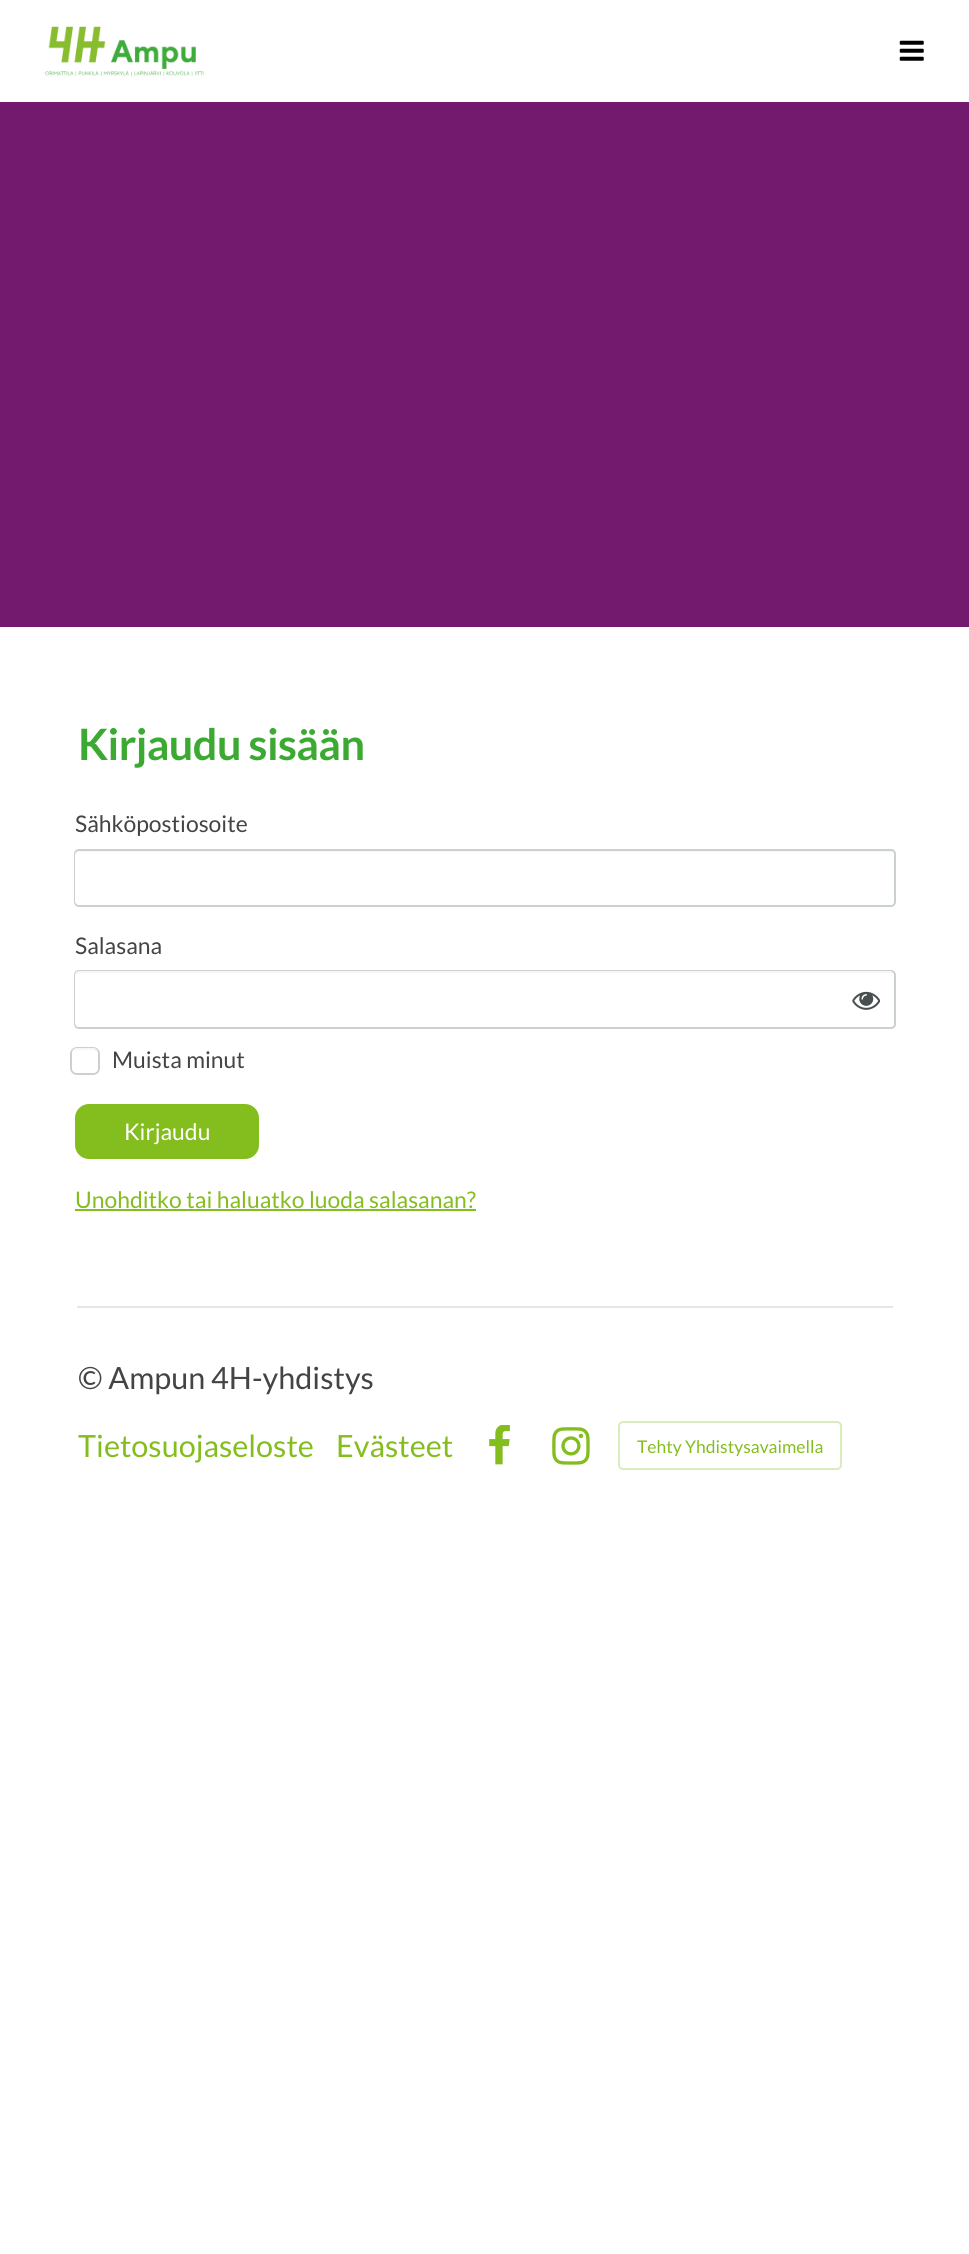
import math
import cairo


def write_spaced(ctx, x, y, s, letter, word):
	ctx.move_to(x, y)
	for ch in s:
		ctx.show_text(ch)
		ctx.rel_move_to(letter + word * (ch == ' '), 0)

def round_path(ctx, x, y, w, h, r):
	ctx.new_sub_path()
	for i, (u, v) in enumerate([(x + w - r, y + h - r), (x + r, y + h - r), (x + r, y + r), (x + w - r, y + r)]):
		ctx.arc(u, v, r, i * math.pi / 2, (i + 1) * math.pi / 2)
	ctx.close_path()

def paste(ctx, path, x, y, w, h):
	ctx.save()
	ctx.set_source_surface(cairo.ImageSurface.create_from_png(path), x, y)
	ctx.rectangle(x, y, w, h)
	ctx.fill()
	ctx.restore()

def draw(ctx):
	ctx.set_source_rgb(1, 1, 1)
	ctx.paint()
	paste(ctx, 'media/1.png', 45, 26, 159, 51)
	paste(ctx, 'media/2.png', 899, 40, 25, 21)
	ctx.set_source_rgb(0.451, 0.098, 0.431)
	ctx.rectangle(0, 102, 969, 525)
	ctx.fill()
	ctx.select_font_face('Lato', cairo.FONT_SLANT_NORMAL, cairo.FONT_WEIGHT_BOLD)
	ctx.set_font_size(43.25)
	ctx.set_source_rgb(0.235, 0.667, 0.196)
	write_spaced(ctx, 78, 760, 'Kirjaudu sisään', -0.6, 0)
	ctx.select_font_face('Lato')
	ctx.set_font_size(22.9)
	ctx.set_source_rgb(0.267, 0.267, 0.267)
	ctx.move_to(75, 832)
	ctx.show_text('Sähköpostiosoite')
	round_path(ctx, 75, 850, 820, 56, 4)
	ctx.set_source_rgb(0.796, 0.816, 0.816)
	ctx.stroke()
	ctx.set_source_rgb(1, 1, 1)
	round_path(ctx, 75, 851, 819, 54, 4)
	ctx.fill()
	ctx.set_source_rgba(0.247, 0.247, 0.267, 0.05)
	ctx.new_path()
	ctx.move_to(79, 852)
	ctx.line_to(891, 852)
	ctx.curve_to(893, 852, 894, 854, 894, 856)
	ctx.curve_to(894, 853, 893, 851, 890, 851)
	ctx.line_to(79, 851)
	ctx.curve_to(76, 851, 75, 853, 75, 856)
	ctx.curve_to(75, 854, 77, 852, 79, 852)
	ctx.close_path()
	ctx.fill()
	ctx.set_source_rgb(0.267, 0.267, 0.267)
	ctx.move_to(75, 954)
	ctx.show_text('Salasana')
	round_path(ctx, 75, 971, 820, 57, 4)
	ctx.set_source_rgb(0.796, 0.816, 0.816)
	ctx.stroke()
	ctx.set_source_rgb(1, 1, 1)
	round_path(ctx, 75, 971, 819, 56, 4)
	ctx.fill()
	ctx.set_source_rgba(0.247, 0.247, 0.267, 0.05)
	ctx.new_path()
	ctx.move_to(79, 973)
	ctx.line_to(891, 973)
	ctx.curve_to(893, 973, 894, 975, 894, 976)
	ctx.curve_to(894, 973, 893, 971, 890, 971)
	ctx.line_to(79, 971)
	ctx.curve_to(76, 971, 75, 973, 75, 976)
	ctx.curve_to(75, 975, 77, 973, 79, 973)
	ctx.close_path()
	ctx.fill()
	paste(ctx, 'media/3.png', 852, 991, 28, 19)
	round_path(ctx, 71, 1048, 28, 26, 6)
	ctx.set_source_rgb(0.796, 0.816, 0.816)
	ctx.stroke()
	ctx.set_source_rgb(1, 1, 1)
	round_path(ctx, 72, 1048, 26, 25, 5)
	ctx.fill()
	ctx.set_source_rgba(0.247, 0.247, 0.267, 0.05)
	ctx.set_fill_rule(cairo.FILL_RULE_EVEN_ODD)
	ctx.new_path()
	ctx.move_to(77, 1050)
	ctx.line_to(90, 1050)
	ctx.curve_to(96.5, 1050, 98, 1052.5, 98, 1057)
	ctx.line_to(98, 1052)
	ctx.curve_to(97, 1048, 93.5, 1048, 90.5, 1048)
	ctx.line_to(85, 1048)
	ctx.curve_to(79.5, 1048, 72, 1046, 72, 1054)
	ctx.curve_to(72.5, 1051.5, 74, 1050, 77, 1050)
	ctx.close_path()
	ctx.move_to(98, 1067.5)
	ctx.line_to(98, 1069)
	ctx.close_path()
	ctx.fill()
	ctx.set_source_rgb(0.267, 0.267, 0.267)
	ctx.move_to(112, 1068)
	ctx.show_text('Muista minut')
	ctx.set_source_rgb(0.518, 0.741, 0.118)
	round_path(ctx, 75, 1104, 184, 55, 14)
	ctx.fill()
	ctx.set_source_rgb(1, 1, 1)
	ctx.move_to(124, 1140)
	ctx.show_text('Kirjaudu')
	ctx.set_source_rgb(0.518, 0.741, 0.118)
	ctx.move_to(75, 1208)
	ctx.show_text('Unohditko tai haluatko luoda salasanan?')
	ctx.rectangle(75, 1209, 401, 2)
	ctx.fill()
	ctx.set_source_rgb(0.902, 0.902, 0.902)
	ctx.rectangle(77, 1306, 816, 2)
	ctx.fill()
	ctx.set_font_size(30.6)
	ctx.set_source_rgb(0.267, 0.267, 0.267)
	ctx.move_to(78, 1389)
	ctx.show_text('© Ampun 4H-yhdistys')
	ctx.set_source_rgb(0.518, 0.741, 0.118)
	ctx.move_to(78, 1457)
	ctx.show_text('Tietosuojaseloste')
	ctx.move_to(336, 1457)
	ctx.show_text('Evästeet')
	paste(ctx, 'media/4.png', 489, 1425, 21, 40)
	paste(ctx, 'media/5.png', 552, 1427, 38, 38)
	round_path(ctx, 619, 1422, 222, 47, 4)
	ctx.set_source_rgb(0.855, 0.922, 0.737)
	ctx.stroke()
	ctx.set_font_size(17.5)
	ctx.set_source_rgb(0.518, 0.741, 0.118)
	ctx.move_to(637, 1453)
	ctx.show_text('Tehty Yhdistysavaimella')


surface = cairo.ImageSurface(cairo.FORMAT_RGB24, 969, 2254)
ctx = cairo.Context(surface)
options = cairo.FontOptions()
options.set_hint_metrics(cairo.HINT_METRICS_OFF)
options.set_hint_style(cairo.HINT_STYLE_NONE)
ctx.set_font_options(options)
ctx.set_miter_limit(4)
draw(ctx)
surface.write_to_png('image.png')
